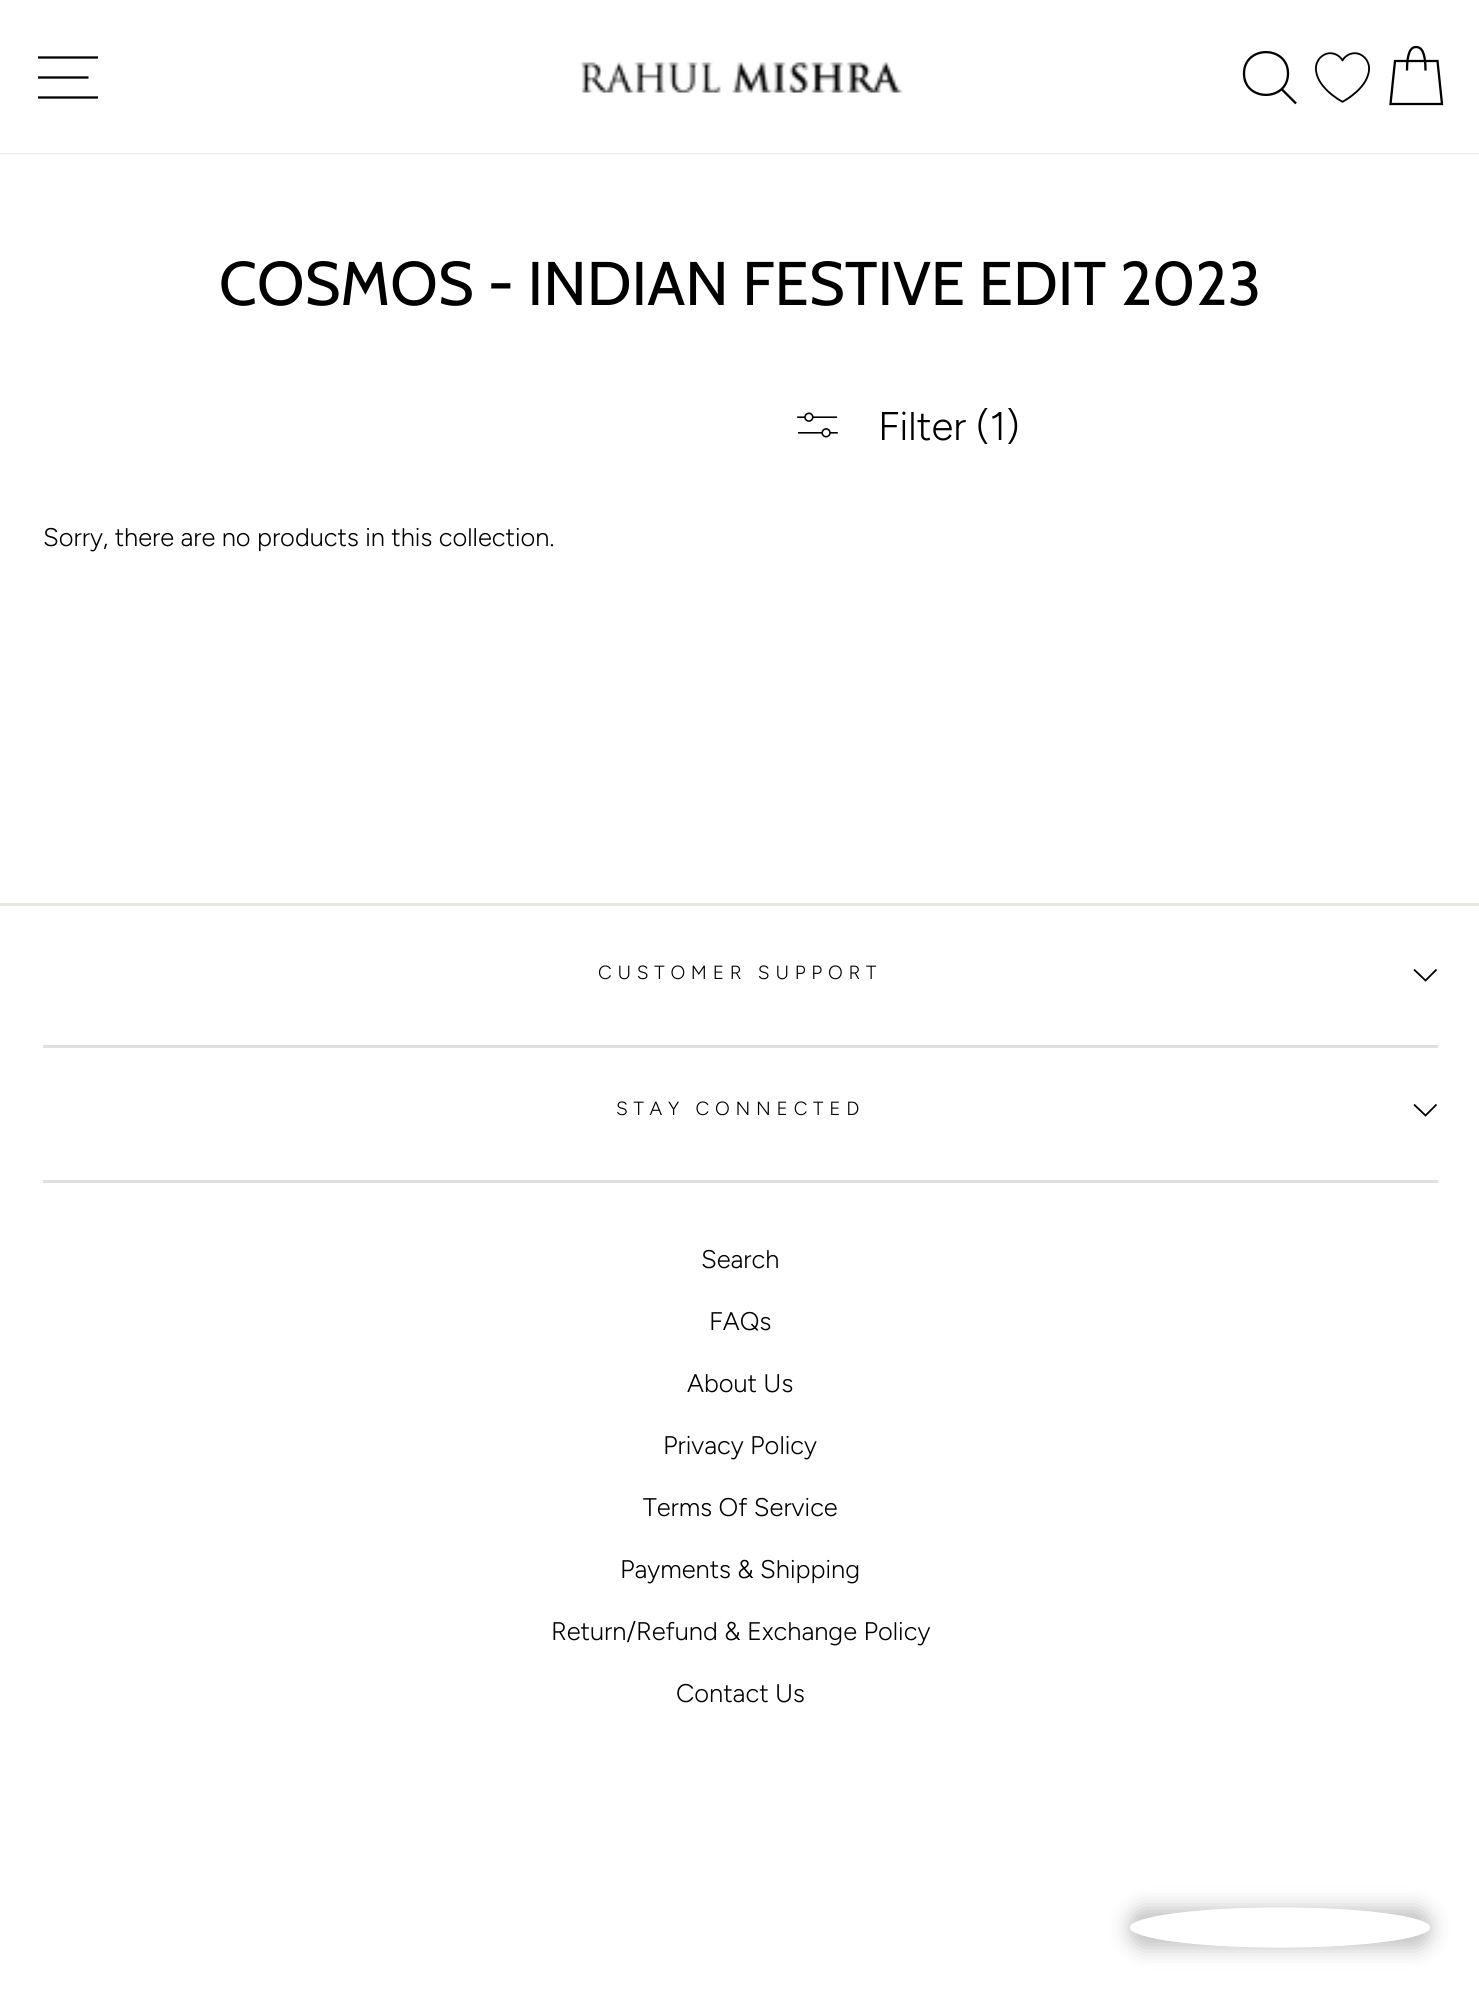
import math
import cairo


def write_spaced(ctx, x, y, s, letter, word):
	ctx.move_to(x, y)
	for ch in s:
		ctx.show_text(ch)
		ctx.rel_move_to(letter + word * (ch == ' '), 0)

def round_path(ctx, x, y, w, h, r):
	ctx.new_sub_path()
	for i, (u, v) in enumerate([(x + w - r, y + h - r), (x + r, y + h - r), (x + r, y + r), (x + w - r, y + r)]):
		ctx.arc(u, v, r, i * math.pi / 2, (i + 1) * math.pi / 2)
	ctx.close_path()

def blur_box(ctx, x, y, w, h, r, blur, alpha):
	ctx.push_group_with_content(cairo.CONTENT_ALPHA)
	ctx.set_operator(cairo.OPERATOR_SOURCE)
	for i in range(15, -16, -2):
		e = blur * i / 6
		if min(w, h) + 2 * e > 0:
			ctx.set_source_rgba(0, 0, 0, alpha * math.erfc((i - 1) / 8.5) / 2)
			round_path(ctx, x - e, y - e, w + 2 * e, h + 2 * e, max(0, min(r + e + blur * .6, min(w, h) / 2 + e)))
			ctx.fill()
	ctx.mask(ctx.pop_group())

def paste(ctx, path, x, y, w, h):
	ctx.save()
	ctx.set_source_surface(cairo.ImageSurface.create_from_png(path), x, y)
	ctx.rectangle(x, y, w, h)
	ctx.fill()
	ctx.restore()

def draw(ctx):
	ctx.set_source_rgb(1, 1, 1)
	ctx.paint()
	ctx.set_source_rgb(0, 0, 0)
	blur_box(ctx, 0, 0, 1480, 153, 0, 1, 0.2)
	ctx.set_source_rgb(1, 1, 1)
	ctx.rectangle(0, 0, 1479, 153)
	ctx.fill()
	ctx.new_path()
	ctx.move_to(38, 57.5)
	ctx.line_to(98, 57.5)
	ctx.move_to(38, 77.5)
	ctx.line_to(88.5, 77.5)
	ctx.move_to(38, 97.5)
	ctx.line_to(98, 97.5)
	ctx.set_source_rgb(0, 0, 0)
	ctx.set_line_width(2.3)
	ctx.stroke()
	paste(ctx, 'media/1.png', 580, 62, 323, 31)
	ctx.new_path()
	ctx.move_to(1288, 73.5)
	ctx.curve_to(1288, 102, 1244, 102, 1244, 73.5)
	ctx.curve_to(1244, 45, 1288, 45, 1288, 73.5)
	ctx.close_path()
	ctx.move_to(1296, 103.5)
	ctx.line_to(1281.5, 89)
	ctx.stroke()
	paste(ctx, 'media/2.png', 1315, 52, 55, 51)
	ctx.new_path()
	ctx.move_to(1407, 70.5)
	ctx.curve_to(1407, 52, 1411, 47, 1416, 47)
	ctx.curve_to(1421.5, 47, 1425.5, 52, 1425.5, 70.5)
	ctx.move_to(1395, 61)
	ctx.line_to(1437.5, 61)
	ctx.line_to(1442, 104)
	ctx.line_to(1390.5, 104)
	ctx.close_path()
	ctx.stroke()
	ctx.select_font_face('Cabin')
	ctx.set_font_size(61.6)
	ctx.move_to(219, 305)
	ctx.show_text('COSMOS - INDIAN FESTIVE EDIT 2023')
	paste(ctx, 'media/3.png', 797, 412, 41, 26)
	ctx.select_font_face('Figtree Light')
	ctx.set_font_size(40)
	ctx.move_to(878, 440)
	ctx.show_text('Filter (1)')
	ctx.set_font_size(25.5)
	ctx.move_to(43, 546)
	ctx.show_text('Sorry, there are no products in this collection.')
	ctx.set_source_rgb(0.91, 0.91, 0.882)
	ctx.rectangle(0, 903, 1479, 3)
	ctx.fill()
	ctx.set_font_size(19.1)
	ctx.set_source_rgb(0, 0, 0)
	write_spaced(ctx, 598, 979, 'CUSTOMER SUPPORT', 5.75, 0)
	ctx.new_path()
	ctx.move_to(1414, 969.5)
	ctx.line_to(1425.5, 980.5)
	ctx.line_to(1436.5, 969.5)
	ctx.set_line_width(1.8)
	ctx.stroke()
	ctx.set_source_rgb(0.878, 0.878, 0.878)
	ctx.rectangle(43, 1045, 1395, 3)
	ctx.fill()
	ctx.set_source_rgb(0, 0, 0)
	write_spaced(ctx, 616, 1115, 'STAY CONNECTED', 5.75, 0)
	ctx.new_path()
	ctx.move_to(1414, 1104.5)
	ctx.line_to(1425.5, 1115.5)
	ctx.line_to(1436.5, 1104.5)
	ctx.stroke()
	ctx.set_source_rgb(0.878, 0.878, 0.878)
	ctx.rectangle(43, 1180, 1395, 3)
	ctx.fill()
	ctx.set_font_size(25.5)
	ctx.set_source_rgb(0, 0, 0)
	for x, y, s in [
		(701, 1268, 'Search'),
		(709, 1330, 'FAQs'),
		(687, 1392, 'About Us'),
		(663, 1454, 'Privacy Policy'),
		(643, 1516, 'Terms Of Service'),
		(620, 1578, 'Payments & Shipping'),
		(551, 1640, 'Return/Refund & Exchange Policy'),
		(676, 1702, 'Contact Us'),
	]:
		ctx.move_to(x, y)
		ctx.show_text(s)
	ctx.save()
	ctx.set_fill_rule(cairo.FILL_RULE_EVEN_ODD)
	ctx.new_path()
	ctx.move_to(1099, 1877)
	ctx.line_to(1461, 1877)
	ctx.line_to(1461, 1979)
	ctx.line_to(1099, 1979)
	ctx.close_path()
	ctx.move_to(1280, 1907.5)
	ctx.curve_to(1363, 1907.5, 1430, 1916.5, 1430, 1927.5)
	ctx.curve_to(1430, 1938.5, 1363, 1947.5, 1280, 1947.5)
	ctx.curve_to(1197, 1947.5, 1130, 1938.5, 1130, 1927.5)
	ctx.curve_to(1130, 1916.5, 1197, 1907.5, 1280, 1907.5)
	ctx.close_path()
	ctx.clip()
	ctx.set_source_rgb(0.761, 0.761, 0.761)
	blur_box(ctx, 1130, 1908, 300, 40, 20, 10, 1)
	ctx.restore()


surface = cairo.ImageSurface(cairo.FORMAT_RGB24, 1479, 1997)
ctx = cairo.Context(surface)
options = cairo.FontOptions()
options.set_hint_metrics(cairo.HINT_METRICS_OFF)
options.set_hint_style(cairo.HINT_STYLE_NONE)
ctx.set_font_options(options)
ctx.set_miter_limit(4)
draw(ctx)
surface.write_to_png('image.png')
